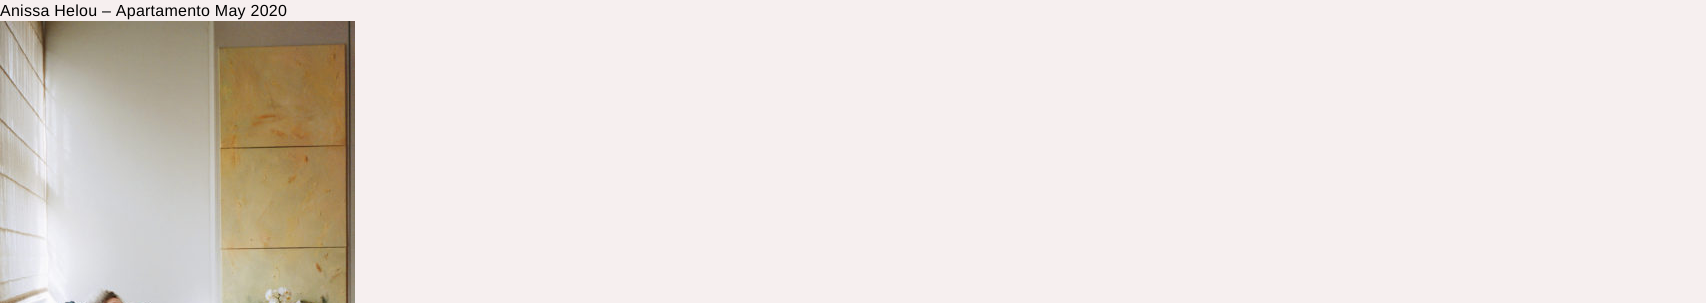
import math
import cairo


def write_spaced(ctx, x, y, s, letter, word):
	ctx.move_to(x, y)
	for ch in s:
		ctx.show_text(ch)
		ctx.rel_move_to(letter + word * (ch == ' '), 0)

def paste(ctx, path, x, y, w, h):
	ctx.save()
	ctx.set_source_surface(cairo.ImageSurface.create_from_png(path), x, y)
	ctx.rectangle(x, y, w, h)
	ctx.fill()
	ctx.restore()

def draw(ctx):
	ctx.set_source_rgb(0.961, 0.937, 0.937)
	ctx.paint()
	ctx.select_font_face('Liberation Sans')
	ctx.set_font_size(16)
	ctx.set_source_rgb(0, 0, 0)
	write_spaced(ctx, 0, 16, 'Anissa Helou – Apartamento May 2020', 0.25, 0)
	paste(ctx, 'media/1.png', 0, 21, 355, 282)


surface = cairo.ImageSurface(cairo.FORMAT_RGB24, 1706, 303)
ctx = cairo.Context(surface)
options = cairo.FontOptions()
options.set_hint_metrics(cairo.HINT_METRICS_OFF)
options.set_hint_style(cairo.HINT_STYLE_NONE)
ctx.set_font_options(options)
ctx.set_miter_limit(4)
draw(ctx)
surface.write_to_png('image.png')
